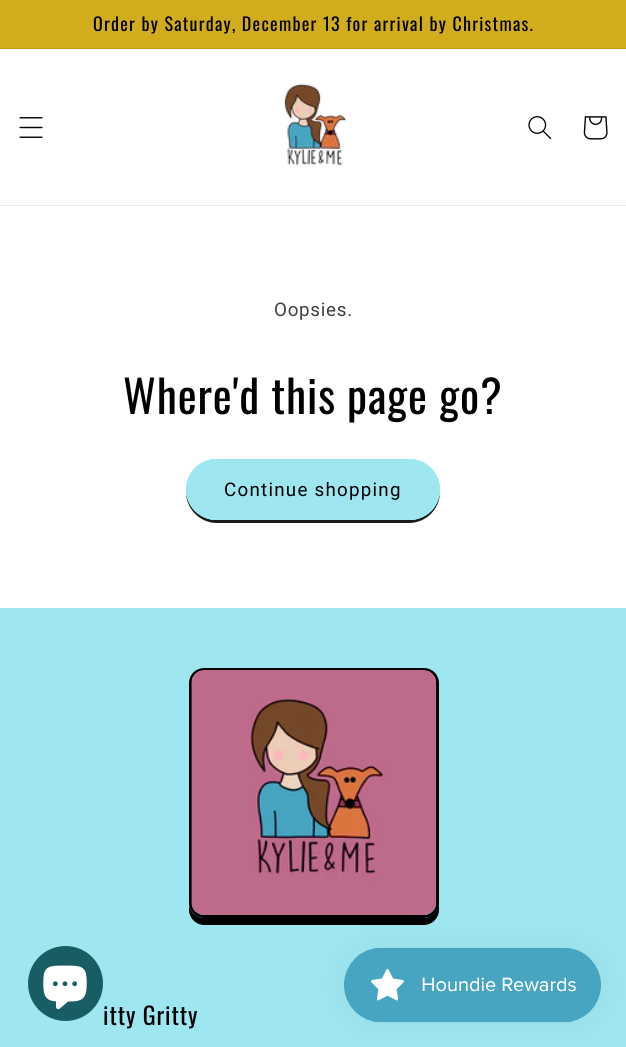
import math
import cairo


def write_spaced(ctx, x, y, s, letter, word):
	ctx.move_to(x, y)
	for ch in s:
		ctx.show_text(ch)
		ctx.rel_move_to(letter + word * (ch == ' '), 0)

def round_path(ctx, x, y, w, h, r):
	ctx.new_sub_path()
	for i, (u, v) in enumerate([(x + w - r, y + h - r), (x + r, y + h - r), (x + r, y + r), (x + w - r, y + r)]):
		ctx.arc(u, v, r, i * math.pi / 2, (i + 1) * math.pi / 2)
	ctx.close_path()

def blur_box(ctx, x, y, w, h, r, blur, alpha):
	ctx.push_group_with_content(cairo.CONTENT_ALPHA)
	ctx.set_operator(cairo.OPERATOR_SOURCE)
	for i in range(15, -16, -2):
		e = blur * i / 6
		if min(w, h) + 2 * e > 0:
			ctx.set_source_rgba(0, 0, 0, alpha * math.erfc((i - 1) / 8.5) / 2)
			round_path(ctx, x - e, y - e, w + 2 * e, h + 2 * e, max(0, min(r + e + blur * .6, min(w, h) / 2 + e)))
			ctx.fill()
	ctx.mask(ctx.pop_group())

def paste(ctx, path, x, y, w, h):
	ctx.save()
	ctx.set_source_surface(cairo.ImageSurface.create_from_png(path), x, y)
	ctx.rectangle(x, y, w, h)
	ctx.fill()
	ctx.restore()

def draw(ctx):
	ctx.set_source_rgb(1, 1, 1)
	ctx.paint()
	ctx.set_source_rgb(0.82, 0.675, 0.11)
	ctx.rectangle(0, 0, 626, 48)
	ctx.fill()
	ctx.set_source_rgb(0.753, 0.62, 0.102)
	ctx.rectangle(0, 48, 626, 1)
	ctx.fill()
	ctx.select_font_face('Oswald')
	ctx.set_font_size(18)
	ctx.set_source_rgb(0, 0, 0)
	write_spaced(ctx, 93, 31, 'Order by Saturday, December 13 for arrival by Christmas.', 1.25, 0)
	ctx.set_source_rgb(0.922, 0.922, 0.922)
	ctx.rectangle(0, 205, 626, 1)
	ctx.fill()
	paste(ctx, 'media/1.png', 19, 117, 24, 21)
	paste(ctx, 'media/2.png', 284, 83, 63, 83)
	paste(ctx, 'media/3.png', 528, 116, 24, 24)
	paste(ctx, 'media/4.png', 583, 116, 25, 24)
	ctx.select_font_face('Roboto')
	ctx.set_font_size(18.75)
	ctx.set_source_rgb(0.251, 0.251, 0.251)
	write_spaced(ctx, 274, 316, 'Oopsies.', 0.75, 0)
	ctx.select_font_face('Oswald')
	ctx.set_font_size(45)
	ctx.set_source_rgb(0, 0, 0)
	write_spaced(ctx, 123, 414, 'Where\'d this page go?', 0.9, 0)
	ctx.set_source_rgb(0.102, 0.102, 0.102)
	ctx.new_path()
	ctx.move_to(186, 488)
	ctx.line_to(186, 492)
	ctx.curve_to(186, 509, 200, 523, 217, 523)
	ctx.line_to(409, 523)
	ctx.curve_to(426, 523, 440, 509, 440, 492)
	ctx.line_to(440, 491)
	ctx.curve_to(439, 507, 426, 520, 409, 520)
	ctx.line_to(217, 520)
	ctx.curve_to(200, 520, 186, 506, 186, 489)
	ctx.close_path()
	ctx.fill()
	ctx.set_source_rgb(0.62, 0.902, 0.941)
	round_path(ctx, 186, 459, 254, 61, 30.5)
	ctx.fill()
	round_path(ctx, 187.5, 460.5, 251, 58, 29)
	ctx.set_line_width(3)
	ctx.stroke()
	ctx.select_font_face('Roboto')
	ctx.set_font_size(18.75)
	ctx.set_source_rgb(0, 0, 0)
	write_spaced(ctx, 224, 496, 'Continue shopping', 1.25, 0)
	ctx.set_source_rgb(0.62, 0.902, 0.941)
	ctx.rectangle(0, 608, 626, 439)
	ctx.fill()
	ctx.set_source_rgb(0.094, 0.365, 0.392)
	ctx.arc(65.5, 983.5, 37.5, 0, 2 * math.pi)
	ctx.fill()
	paste(ctx, 'media/5.png', 43, 965, 44, 45)
	ctx.set_source_rgb(0, 0, 0)
	ctx.new_path()
	ctx.move_to(189, 905)
	ctx.line_to(189, 910)
	ctx.curve_to(189, 918, 196, 925, 204, 925)
	ctx.line_to(424, 925)
	ctx.curve_to(432, 925, 439, 918, 439, 910)
	ctx.line_to(439, 687)
	ctx.line_to(439, 902)
	ctx.curve_to(439, 911, 432, 918, 424, 918)
	ctx.line_to(204, 918)
	ctx.curve_to(196, 918, 190, 912, 189, 905)
	ctx.close_path()
	ctx.fill()
	ctx.set_source_rgb(0.62, 0.902, 0.941)
	round_path(ctx, 190.5, 669.5, 247, 247, 13.5)
	ctx.fill_preserve()
	ctx.set_source_rgb(0, 0, 0)
	ctx.stroke()
	paste(ctx, 'media/6.png', 191, 670, 245, 245)
	ctx.select_font_face('Oswald')
	ctx.set_font_size(24)
	write_spaced(ctx, 103, 1025, 'itty Gritty', 0.9, 0)
	ctx.set_source_rgb(0, 0, 0)
	blur_box(ctx, 344, 948, 257, 75, 37.5, 15.5, 0.05)
	paste(ctx, 'media/7.png', 344, 947, 257, 76)


surface = cairo.ImageSurface(cairo.FORMAT_RGB24, 626, 1047)
ctx = cairo.Context(surface)
options = cairo.FontOptions()
options.set_hint_metrics(cairo.HINT_METRICS_OFF)
options.set_hint_style(cairo.HINT_STYLE_NONE)
ctx.set_font_options(options)
ctx.set_miter_limit(4)
draw(ctx)
surface.write_to_png('image.png')
